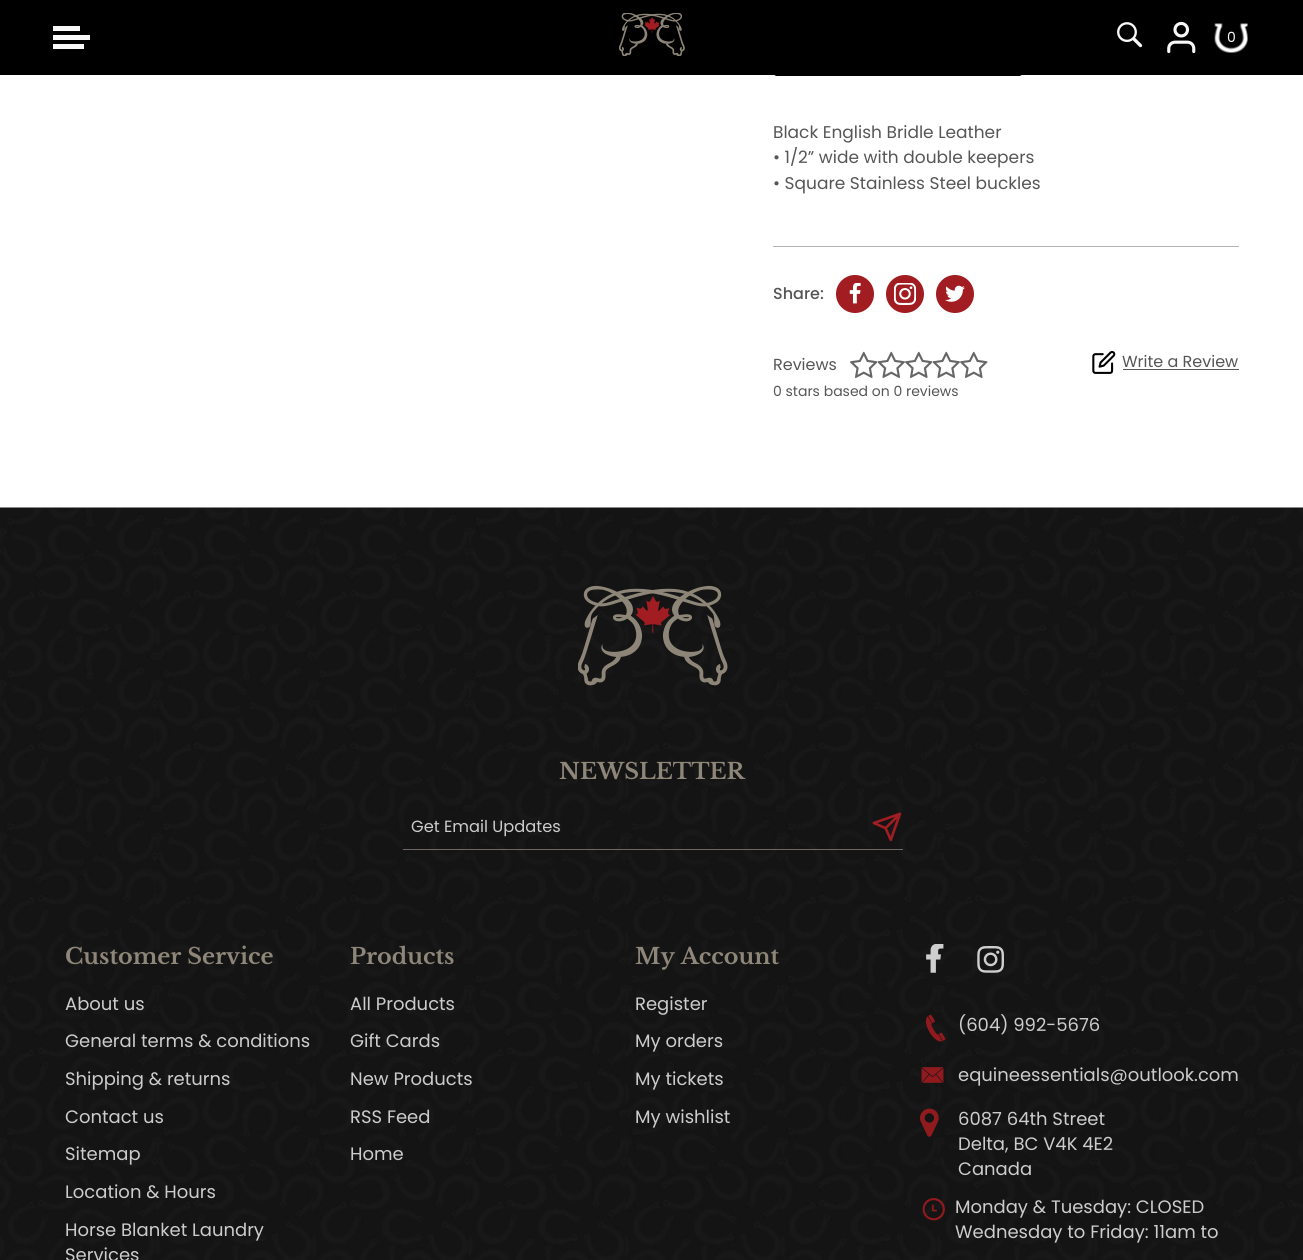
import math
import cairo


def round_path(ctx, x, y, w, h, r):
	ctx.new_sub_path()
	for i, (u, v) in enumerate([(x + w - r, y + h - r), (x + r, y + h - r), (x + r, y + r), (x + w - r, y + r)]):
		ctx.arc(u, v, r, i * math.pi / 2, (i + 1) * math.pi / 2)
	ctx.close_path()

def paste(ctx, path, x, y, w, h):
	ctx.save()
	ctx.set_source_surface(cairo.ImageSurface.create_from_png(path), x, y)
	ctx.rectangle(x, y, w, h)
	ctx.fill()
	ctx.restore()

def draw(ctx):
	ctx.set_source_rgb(1, 1, 1)
	ctx.paint()
	ctx.set_source_rgb(0, 0, 0)
	round_path(ctx, 773, 26, 250, 50, 4)
	ctx.fill()
	ctx.rectangle(0, 0, 1303, 75)
	ctx.fill()
	ctx.set_source_rgb(0.973, 0.973, 0.973)
	ctx.rectangle(53, 26, 27, 5)
	ctx.rectangle(53, 35, 37, 5)
	ctx.rectangle(53, 44, 31, 5)
	ctx.fill()
	paste(ctx, 'media/1.png', 618, 13, 67, 43)
	paste(ctx, 'media/2.png', 1117, 22, 26, 26)
	paste(ctx, 'media/3.png', 1167, 21, 29, 33)
	paste(ctx, 'media/4.png', 1214, 23, 34, 30)
	ctx.select_font_face('Poppins')
	ctx.set_font_size(14)
	ctx.move_to(1227, 42)
	ctx.show_text('0')
	ctx.set_font_size(17)
	ctx.set_source_rgb(0.337, 0.337, 0.337)
	for x, y, s in [
		(773, 138, 'Black English Bridle Leather'),
		(773, 163, '• 1/2” wide with double keepers'),
		(773, 189, '• Square Stainless Steel buckles'),
	]:
		ctx.move_to(x, y)
		ctx.show_text(s)
	ctx.set_source_rgb(0.702, 0.702, 0.702)
	ctx.rectangle(773, 246, 466, 1)
	ctx.fill()
	ctx.select_font_face('Poppins Medium')
	ctx.set_font_size(16)
	ctx.set_source_rgb(0.337, 0.337, 0.337)
	ctx.move_to(773, 299)
	ctx.show_text('Share:')
	ctx.set_source_rgb(0.631, 0.114, 0.129)
	ctx.new_path()
	ctx.arc(855, 294, 19, 0, 2 * math.pi)
	ctx.fill()
	paste(ctx, 'media/5.png', 849, 283, 12, 21)
	ctx.arc(905, 294, 19, 0, 2 * math.pi)
	ctx.fill()
	paste(ctx, 'media/6.png', 894, 283, 22, 22)
	ctx.arc(955, 294, 19, 0, 2 * math.pi)
	ctx.fill()
	paste(ctx, 'media/7.png', 945, 285, 20, 17)
	ctx.select_font_face('Poppins')
	ctx.set_source_rgb(0.337, 0.337, 0.337)
	ctx.move_to(773, 370)
	ctx.show_text('Reviews')
	paste(ctx, 'media/8.png', 850, 351, 28, 27)
	paste(ctx, 'media/9.png', 878, 351, 27, 27)
	paste(ctx, 'media/8.png', 905, 351, 28, 27)
	paste(ctx, 'media/9.png', 933, 351, 27, 27)
	paste(ctx, 'media/8.png', 960, 351, 28, 27)
	ctx.set_font_size(14)
	ctx.move_to(773, 396)
	ctx.show_text('0 stars based on 0 reviews')
	paste(ctx, 'media/10.png', 1092, 350, 24, 24)
	ctx.set_font_size(16)
	ctx.move_to(1122, 367)
	ctx.show_text('Write a Review')
	ctx.rectangle(1123, 369, 116, 1)
	ctx.fill()
	paste(ctx, 'media/11.png', 0, 507, 1303, 753)
	paste(ctx, 'media/12.png', 578, 585, 150, 101)
	ctx.select_font_face('Libre Baskerville', cairo.FONT_SLANT_NORMAL, cairo.FONT_WEIGHT_BOLD)
	ctx.set_font_size(22.25)
	ctx.set_source_rgb(0.557, 0.525, 0.475)
	ctx.move_to(559, 779)
	ctx.show_text('NEWSLETTER')
	ctx.set_source_rgba(0.949, 0.894, 0.863, 0.4)
	ctx.rectangle(403, 849, 500, 1)
	ctx.fill()
	ctx.select_font_face('Poppins')
	ctx.set_font_size(16.25)
	ctx.set_source_rgb(0.8, 0.8, 0.8)
	ctx.move_to(411, 832)
	ctx.show_text('Get Email Updates')
	paste(ctx, 'media/13.png', 872, 812, 30, 30)
	ctx.select_font_face('Libre Baskerville', cairo.FONT_SLANT_NORMAL, cairo.FONT_WEIGHT_BOLD)
	ctx.set_font_size(22.25)
	ctx.set_source_rgb(0.557, 0.525, 0.475)
	ctx.move_to(65, 964)
	ctx.show_text('Customer Service')
	ctx.select_font_face('Poppins')
	ctx.set_font_size(18)
	ctx.set_source_rgb(0.8, 0.8, 0.8)
	for x, y, s in [
		(65, 1010, 'About us'),
		(65, 1047, 'General terms & conditions'),
		(65, 1085, 'Shipping & returns'),
		(65, 1123, 'Contact us'),
		(65, 1160, 'Sitemap'),
		(65, 1198, 'Location & Hours'),
		(65, 1236, 'Horse Blanket Laundry'),
		(65, 1261, 'Services'),
	]:
		ctx.move_to(x, y)
		ctx.show_text(s)
	ctx.select_font_face('Libre Baskerville', cairo.FONT_SLANT_NORMAL, cairo.FONT_WEIGHT_BOLD)
	ctx.set_font_size(22.25)
	ctx.set_source_rgb(0.557, 0.525, 0.475)
	ctx.move_to(350, 964)
	ctx.show_text('Products')
	ctx.select_font_face('Poppins')
	ctx.set_font_size(18)
	ctx.set_source_rgb(0.8, 0.8, 0.8)
	for x, y, s in [
		(350, 1010, 'All Products'),
		(350, 1047, 'Gift Cards'),
		(350, 1085, 'New Products'),
		(350, 1123, 'RSS Feed'),
		(350, 1160, 'Home'),
	]:
		ctx.move_to(x, y)
		ctx.show_text(s)
	ctx.select_font_face('Libre Baskerville', cairo.FONT_SLANT_NORMAL, cairo.FONT_WEIGHT_BOLD)
	ctx.set_font_size(22.25)
	ctx.set_source_rgb(0.557, 0.525, 0.475)
	ctx.move_to(635, 964)
	ctx.show_text('My Account')
	ctx.select_font_face('Poppins')
	ctx.set_font_size(18)
	ctx.set_source_rgb(0.8, 0.8, 0.8)
	for x, y, s in [
		(635, 1010, 'Register'),
		(635, 1047, 'My orders'),
		(635, 1085, 'My tickets'),
		(635, 1123, 'My wishlist'),
	]:
		ctx.move_to(x, y)
		ctx.show_text(s)
	paste(ctx, 'media/14.png', 926, 944, 18, 29)
	paste(ctx, 'media/15.png', 977, 946, 27, 27)
	paste(ctx, 'media/16.png', 925, 1014, 21, 28)
	ctx.move_to(958, 1031)
	ctx.show_text('(604) 992-5676')
	paste(ctx, 'media/17.png', 921, 1067, 23, 16)
	ctx.move_to(958, 1081)
	ctx.show_text('equineessentials@outlook.com')
	paste(ctx, 'media/18.png', 920, 1108, 19, 29)
	for x, y, s in [
		(958, 1125, '6087 64th Street'),
		(958, 1150, 'Delta, BC V4K 4E2'),
		(958, 1175, 'Canada'),
	]:
		ctx.move_to(x, y)
		ctx.show_text(s)
	paste(ctx, 'media/19.png', 922, 1198, 23, 23)
	ctx.move_to(955, 1213)
	ctx.show_text('Monday & Tuesday: CLOSED')
	ctx.move_to(955, 1238)
	ctx.show_text('Wednesday to Friday: 11am to')


surface = cairo.ImageSurface(cairo.FORMAT_RGB24, 1303, 1260)
ctx = cairo.Context(surface)
options = cairo.FontOptions()
options.set_hint_metrics(cairo.HINT_METRICS_OFF)
options.set_hint_style(cairo.HINT_STYLE_NONE)
ctx.set_font_options(options)
ctx.set_miter_limit(4)
draw(ctx)
surface.write_to_png('image.png')
